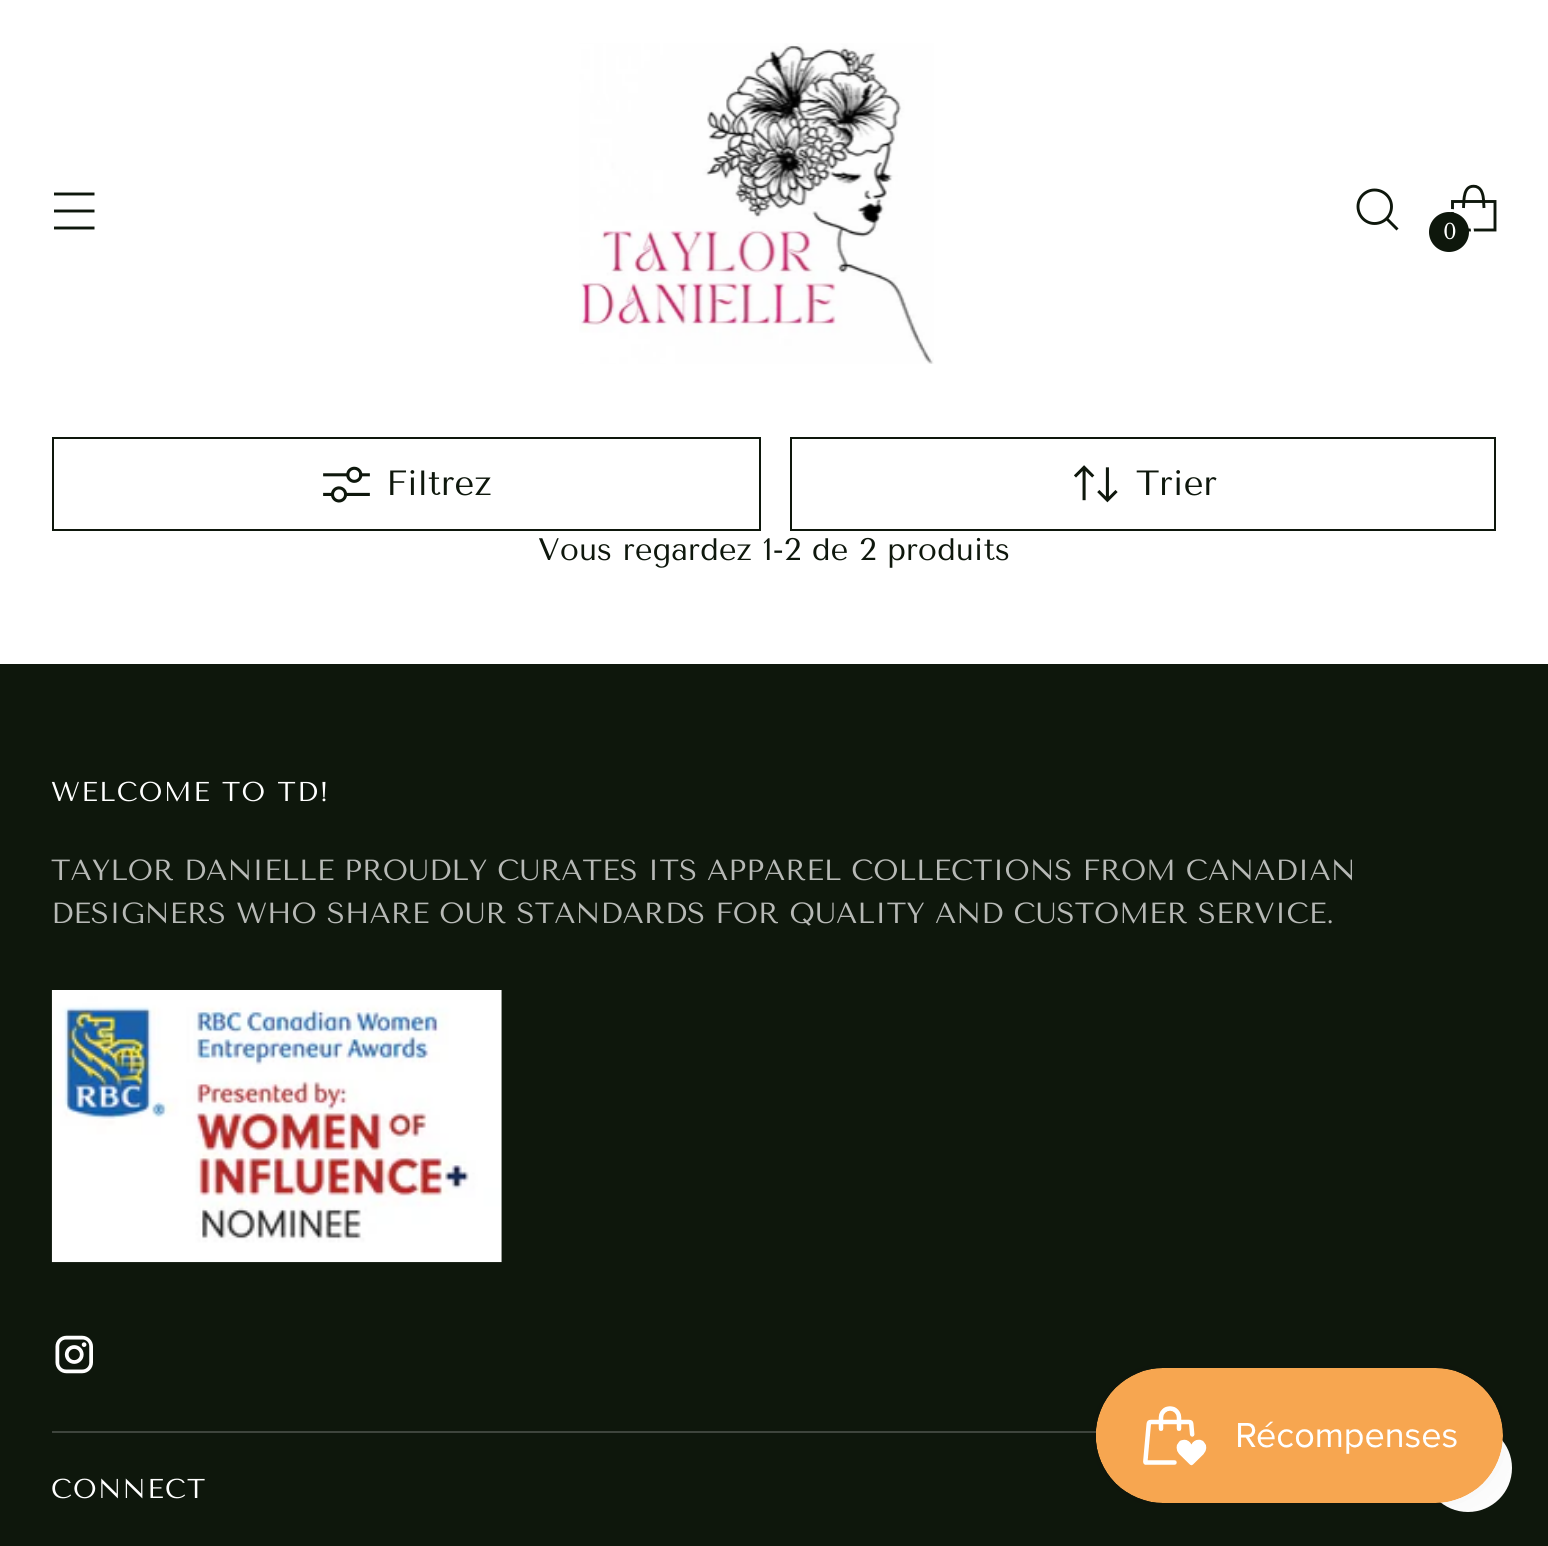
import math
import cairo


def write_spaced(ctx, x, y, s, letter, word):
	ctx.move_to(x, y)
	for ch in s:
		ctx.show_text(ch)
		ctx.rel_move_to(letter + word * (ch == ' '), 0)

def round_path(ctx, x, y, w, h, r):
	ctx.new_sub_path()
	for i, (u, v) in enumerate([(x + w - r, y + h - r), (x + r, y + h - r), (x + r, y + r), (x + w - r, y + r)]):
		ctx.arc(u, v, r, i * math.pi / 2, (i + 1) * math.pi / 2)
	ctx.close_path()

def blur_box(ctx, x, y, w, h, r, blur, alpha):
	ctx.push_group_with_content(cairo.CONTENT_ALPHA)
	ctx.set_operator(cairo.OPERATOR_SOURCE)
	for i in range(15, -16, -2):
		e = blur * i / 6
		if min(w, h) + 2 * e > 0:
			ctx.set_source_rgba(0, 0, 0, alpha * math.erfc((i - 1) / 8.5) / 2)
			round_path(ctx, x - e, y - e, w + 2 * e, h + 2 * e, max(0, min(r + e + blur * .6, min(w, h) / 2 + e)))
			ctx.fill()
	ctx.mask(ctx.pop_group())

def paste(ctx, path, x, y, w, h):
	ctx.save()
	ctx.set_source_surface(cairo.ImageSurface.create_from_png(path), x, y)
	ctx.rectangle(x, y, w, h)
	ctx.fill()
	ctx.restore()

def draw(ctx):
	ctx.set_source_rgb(1, 1, 1)
	ctx.paint()
	ctx.new_path()
	ctx.move_to(54, 211)
	ctx.line_to(94.5, 211)
	ctx.move_to(54, 194)
	ctx.line_to(94.5, 194)
	ctx.move_to(54, 228)
	ctx.line_to(94.5, 228)
	ctx.set_source_rgb(0.055, 0.09, 0.047)
	ctx.set_line_width(2.9)
	ctx.stroke()
	paste(ctx, 'media/1.png', 579, 43, 355, 321)
	ctx.new_path()
	ctx.move_to(1374.5, 223.5)
	ctx.curve_to(1384, 223.5, 1391.5, 216, 1391.5, 206.5)
	ctx.curve_to(1391.5, 197.5, 1384, 190, 1374.5, 190)
	ctx.curve_to(1365.5, 190, 1358, 197.5, 1358, 206.5)
	ctx.curve_to(1358, 216, 1365.5, 223.5, 1374.5, 223.5)
	ctx.close_path()
	ctx.set_line_cap(cairo.LINE_CAP_ROUND)
	ctx.stroke()
	ctx.new_path()
	ctx.move_to(1387, 219)
	ctx.line_to(1397.5, 229.5)
	ctx.set_line_cap(cairo.LINE_CAP_BUTT)
	ctx.stroke()
	ctx.new_path()
	ctx.move_to(1484, 208)
	ctx.curve_to(1483.5, 203, 1484, 197.5, 1482, 192.5)
	ctx.curve_to(1481, 189.5, 1479, 187.5, 1476, 186.5)
	ctx.curve_to(1463, 184, 1464, 200, 1463.5, 208)
	ctx.set_line_join(cairo.LINE_JOIN_BEVEL)
	ctx.stroke()
	ctx.new_path()
	ctx.move_to(1495, 230)
	ctx.line_to(1495, 201.5)
	ctx.line_to(1452.5, 201.5)
	ctx.line_to(1452.5, 230)
	ctx.close_path()
	ctx.set_line_join(cairo.LINE_JOIN_MITER)
	ctx.stroke()
	round_path(ctx, 1428.5, 210.5, 44, 45, 22)
	ctx.set_source_rgb(1, 1, 1)
	ctx.set_line_width(3)
	ctx.stroke()
	ctx.set_source_rgb(0.055, 0.09, 0.047)
	ctx.arc(1449, 232, 20, 0, 2 * math.pi)
	ctx.fill()
	ctx.select_font_face('Tenor Sans')
	ctx.set_font_size(23)
	ctx.set_source_rgb(1, 1, 1)
	ctx.move_to(1443, 239)
	ctx.show_text('0')
	ctx.rectangle(53, 438, 707, 92)
	ctx.set_source_rgb(0.055, 0.09, 0.047)
	ctx.set_line_width(2)
	ctx.stroke()
	paste(ctx, 'media/2.png', 323, 466, 47, 37)
	ctx.set_font_size(35)
	ctx.move_to(386, 495)
	ctx.show_text('Filtrez')
	ctx.rectangle(791, 438, 704, 92)
	ctx.stroke()
	paste(ctx, 'media/3.png', 1074, 465, 44, 38)
	ctx.move_to(1136, 495)
	ctx.show_text('Trier')
	ctx.set_font_size(31.1)
	ctx.move_to(538, 560)
	ctx.show_text('Vous regardez 1-2 de 2 produits')
	ctx.rectangle(0, 664, 1548, 882)
	ctx.fill()
	ctx.set_source_rgb(0.243, 0.271, 0.239)
	ctx.rectangle(52, 1431, 1044, 2)
	ctx.fill()
	ctx.set_font_size(27.25)
	ctx.set_source_rgb(1, 1, 1)
	write_spaced(ctx, 51, 801, 'WELCOME TO TD!', 1.4, 0)
	ctx.set_font_size(29.1)
	ctx.set_source_rgb(0.718, 0.725, 0.714)
	write_spaced(ctx, 51, 880, 'TAYLOR DANIELLE PROUDLY CURATES ITS APPAREL COLLECTIONS FROM CANADIAN', 0, -0.25)
	ctx.move_to(51, 923)
	ctx.show_text('DESIGNERS WHO SHARE OUR STANDARDS FOR QUALITY AND CUSTOMER SERVICE.')
	paste(ctx, 'media/4.png', 51, 990, 451, 273)
	paste(ctx, 'media/5.png', 55, 1335, 38, 39)
	ctx.set_font_size(27.25)
	ctx.set_source_rgb(1, 1, 1)
	write_spaced(ctx, 51, 1498, 'CONNECT', 1.4, 0)
	ctx.new_path()
	ctx.arc(1468, 1468, 44, 0, 2 * math.pi)
	ctx.fill()
	ctx.set_source_rgb(0, 0, 0)
	blur_box(ctx, 1096, 1368, 407, 135, 67.5, 28, 0.05)
	paste(ctx, 'media/6.png', 1096, 1368, 407, 135)


surface = cairo.ImageSurface(cairo.FORMAT_RGB24, 1548, 1546)
ctx = cairo.Context(surface)
options = cairo.FontOptions()
options.set_hint_metrics(cairo.HINT_METRICS_OFF)
options.set_hint_style(cairo.HINT_STYLE_NONE)
ctx.set_font_options(options)
ctx.set_miter_limit(4)
draw(ctx)
surface.write_to_png('image.png')
